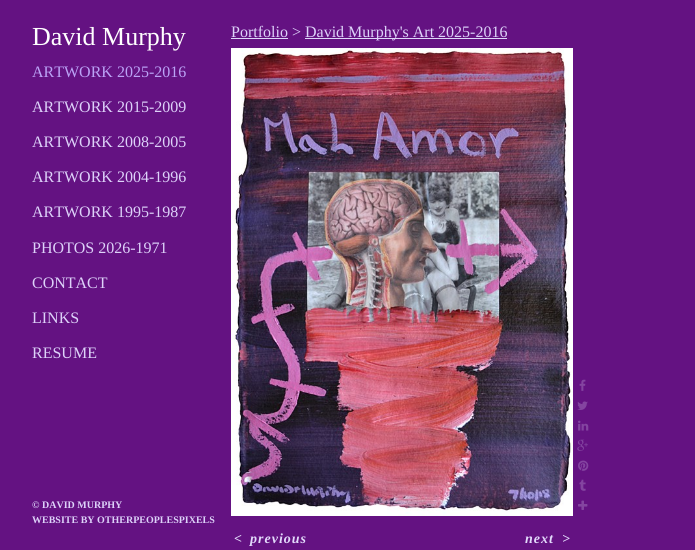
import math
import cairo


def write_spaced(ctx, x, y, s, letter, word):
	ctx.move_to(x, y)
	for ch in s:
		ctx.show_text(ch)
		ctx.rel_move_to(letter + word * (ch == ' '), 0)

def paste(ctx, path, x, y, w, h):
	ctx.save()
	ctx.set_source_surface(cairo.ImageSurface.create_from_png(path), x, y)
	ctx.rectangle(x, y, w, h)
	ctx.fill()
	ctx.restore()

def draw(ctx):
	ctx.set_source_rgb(0.392, 0.071, 0.51)
	ctx.paint()
	ctx.select_font_face('Liberation Serif')
	ctx.set_font_size(26)
	ctx.set_source_rgb(1, 1, 1)
	ctx.move_to(32, 45)
	ctx.show_text('David Murphy')
	ctx.set_font_size(16)
	ctx.set_source_rgb(0.733, 0.639, 0.961)
	ctx.move_to(32, 77)
	ctx.show_text('ARTWORK 2025-2016')
	ctx.set_source_rgb(0.867, 0.824, 0.976)
	for x, y, s in [
		(32, 112, 'ARTWORK 2015-2009'),
		(32, 147, 'ARTWORK 2008-2005'),
		(32, 182, 'ARTWORK 2004-1996'),
		(32, 217, 'ARTWORK 1995-1987'),
		(32, 253, 'PHOTOS 2026-1971'),
		(32, 288, 'CONTACT'),
		(32, 323, 'LINKS'),
		(32, 358, 'RESUME'),
	]:
		ctx.move_to(x, y)
		ctx.show_text(s)
	ctx.select_font_face('Liberation Serif', cairo.FONT_SLANT_NORMAL, cairo.FONT_WEIGHT_BOLD)
	ctx.set_font_size(10)
	ctx.move_to(32, 508)
	ctx.show_text('© DAVID MURPHY')
	ctx.move_to(32, 523)
	ctx.show_text('WEBSITE BY OTHERPEOPLESPIXELS')
	ctx.select_font_face('Liberation Serif')
	ctx.set_font_size(16)
	ctx.move_to(231, 37)
	ctx.show_text('Portfolio >')
	ctx.set_source_rgb(0.867, 0.843, 0.976)
	ctx.rectangle(231, 38, 57, 1)
	ctx.fill()
	ctx.rectangle(305, 38, 202, 1)
	ctx.fill()
	ctx.set_source_rgb(0.867, 0.824, 0.976)
	ctx.move_to(305, 37)
	ctx.show_text('David Murphy\'s Art 2025-2016')
	paste(ctx, 'media/1.png', 231, 48, 342, 468)
	paste(ctx, 'media/2.png', 579, 379, 7, 12)
	paste(ctx, 'media/3.png', 577, 401, 11, 9)
	paste(ctx, 'media/4.png', 578, 420, 11, 11)
	paste(ctx, 'media/5.png', 577, 439, 11, 12)
	paste(ctx, 'media/6.png', 578, 460, 11, 11)
	paste(ctx, 'media/7.png', 579, 479, 7, 12)
	paste(ctx, 'media/8.png', 578, 500, 10, 10)
	ctx.select_font_face('Liberation Serif', cairo.FONT_SLANT_ITALIC, cairo.FONT_WEIGHT_BOLD)
	ctx.set_font_size(14)
	ctx.set_source_rgb(0.886, 0.855, 0.984)
	for x, y, s in [
		(234, 543, '<'),
		(250, 543, 'previous'),
		(525, 543, 'next'),
		(562, 543, '>'),
	]:
		write_spaced(ctx, x, y, s, 1, 0)


surface = cairo.ImageSurface(cairo.FORMAT_RGB24, 695, 550)
ctx = cairo.Context(surface)
options = cairo.FontOptions()
options.set_hint_metrics(cairo.HINT_METRICS_OFF)
options.set_hint_style(cairo.HINT_STYLE_NONE)
ctx.set_font_options(options)
ctx.set_miter_limit(4)
draw(ctx)
surface.write_to_png('image.png')
